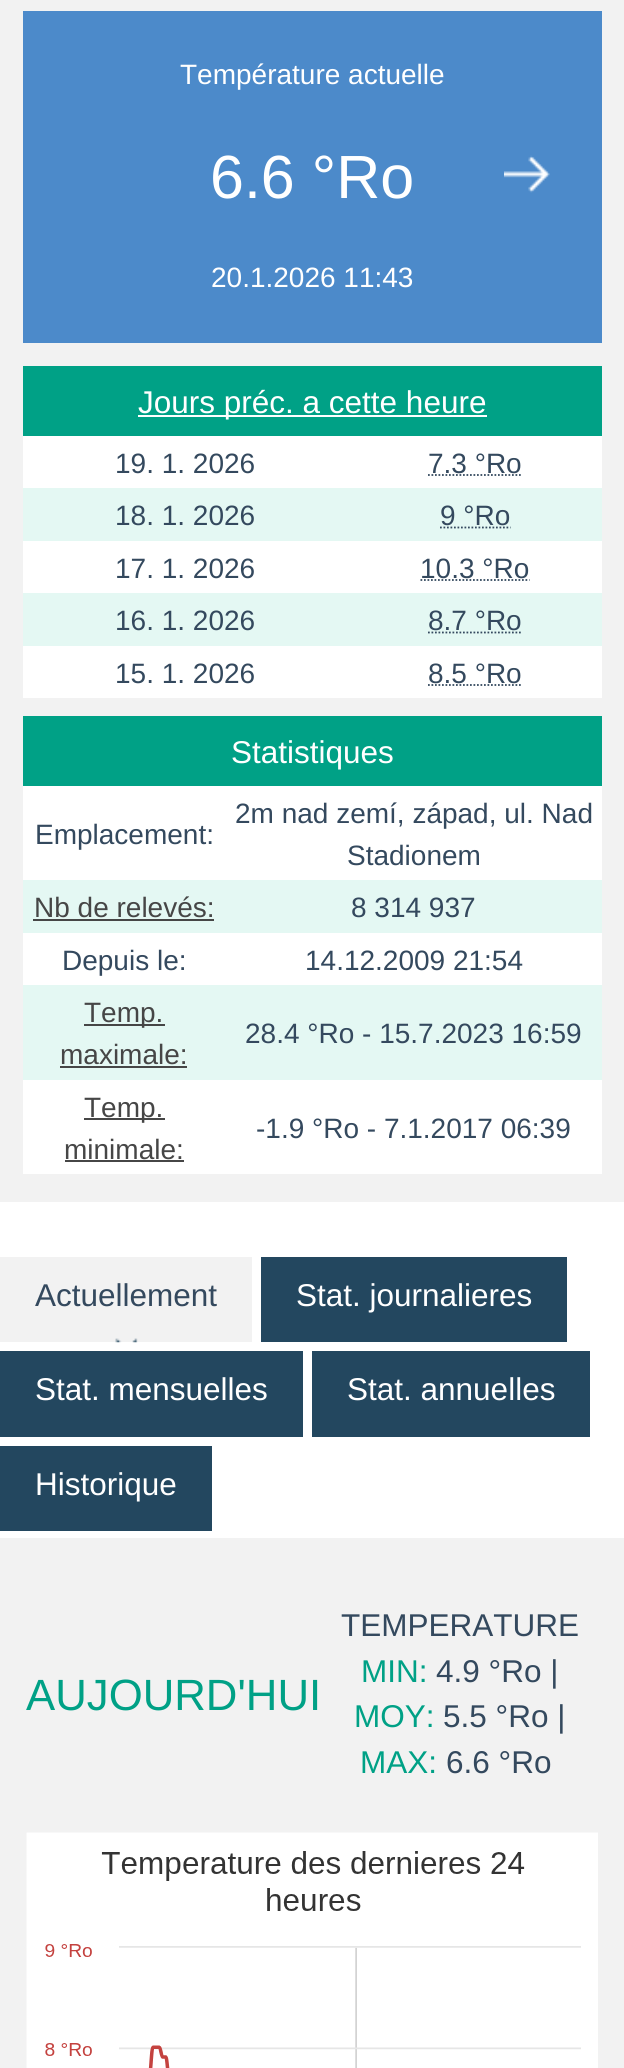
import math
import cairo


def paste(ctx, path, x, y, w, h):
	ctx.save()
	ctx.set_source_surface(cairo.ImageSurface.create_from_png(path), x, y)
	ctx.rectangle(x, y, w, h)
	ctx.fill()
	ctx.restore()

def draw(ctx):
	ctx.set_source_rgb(1, 1, 1)
	ctx.paint()
	ctx.set_source_rgb(0.949, 0.949, 0.949)
	ctx.rectangle(0, 0, 624, 1202)
	ctx.fill()
	ctx.set_source_rgb(0.298, 0.541, 0.792)
	ctx.rectangle(23, 11, 579, 332)
	ctx.fill()
	paste(ctx, 'media/1.png', 504, 155, 46, 38)
	ctx.select_font_face('Liberation Sans')
	ctx.set_font_size(28)
	ctx.set_source_rgb(1, 1, 1)
	ctx.move_to(180, 84)
	ctx.show_text('Température actuelle')
	ctx.set_font_size(61)
	ctx.move_to(210, 198)
	ctx.show_text('6.6 °Ro')
	ctx.set_font_size(28)
	ctx.move_to(211, 287)
	ctx.show_text('20.1.2026 11:43')
	ctx.set_source_rgb(0, 0.631, 0.525)
	ctx.rectangle(23, 366, 579, 70)
	ctx.fill()
	ctx.set_source_rgb(1, 1, 1)
	ctx.rectangle(138, 415, 349, 2)
	ctx.fill()
	ctx.set_font_size(31.5)
	ctx.move_to(138, 413)
	ctx.show_text('Jours préc. a cette heure')
	ctx.rectangle(23, 436, 579, 52)
	ctx.fill()
	ctx.set_font_size(28)
	ctx.set_source_rgb(0.204, 0.286, 0.369)
	ctx.move_to(115, 473)
	ctx.show_text('19. 1. 2026')
	ctx.move_to(428, 473)
	ctx.show_text('7.3 °Ro')
	ctx.new_path()
	ctx.move_to(428, 475)
	ctx.line_to(522, 475)
	ctx.set_line_width(1.8)
	ctx.set_dash([1.75, 1.75])
	ctx.stroke()
	ctx.set_source_rgb(0.894, 0.969, 0.953)
	ctx.rectangle(23, 488, 579, 53)
	ctx.fill()
	ctx.set_source_rgb(0.204, 0.286, 0.369)
	ctx.move_to(115, 525)
	ctx.show_text('18. 1. 2026')
	ctx.move_to(440, 525)
	ctx.show_text('9 °Ro')
	ctx.new_path()
	ctx.move_to(440, 527.5)
	ctx.line_to(510.5, 527.5)
	ctx.stroke()
	ctx.set_source_rgb(1, 1, 1)
	ctx.rectangle(23, 541, 579, 52)
	ctx.fill()
	ctx.set_source_rgb(0.204, 0.286, 0.369)
	ctx.move_to(115, 578)
	ctx.show_text('17. 1. 2026')
	ctx.move_to(420, 578)
	ctx.show_text('10.3 °Ro')
	ctx.new_path()
	ctx.move_to(420.5, 580)
	ctx.line_to(529.5, 580)
	ctx.stroke()
	ctx.set_source_rgb(0.894, 0.969, 0.953)
	ctx.rectangle(23, 593, 579, 53)
	ctx.fill()
	ctx.set_source_rgb(0.204, 0.286, 0.369)
	ctx.move_to(115, 630)
	ctx.show_text('16. 1. 2026')
	ctx.move_to(428, 630)
	ctx.show_text('8.7 °Ro')
	ctx.new_path()
	ctx.move_to(428, 632.5)
	ctx.line_to(522, 632.5)
	ctx.stroke()
	ctx.set_source_rgb(1, 1, 1)
	ctx.rectangle(23, 646, 579, 52)
	ctx.fill()
	ctx.set_source_rgb(0.204, 0.286, 0.369)
	ctx.move_to(115, 683)
	ctx.show_text('15. 1. 2026')
	ctx.move_to(428, 683)
	ctx.show_text('8.5 °Ro')
	ctx.new_path()
	ctx.move_to(428, 685)
	ctx.line_to(522, 685)
	ctx.stroke()
	ctx.set_source_rgb(0, 0.631, 0.525)
	ctx.rectangle(23, 716, 579, 70)
	ctx.fill()
	ctx.set_font_size(31.5)
	ctx.set_source_rgb(1, 1, 1)
	ctx.move_to(231, 763)
	ctx.show_text('Statistiques')
	ctx.rectangle(23, 786, 579, 94)
	ctx.fill()
	ctx.set_font_size(28)
	ctx.set_source_rgb(0.204, 0.286, 0.369)
	for x, y, s in [
		(35, 844, 'Emplacement:'),
		(235, 823, '2m nad zemí, západ, ul. Nad'),
		(347, 865, 'Stadionem'),
	]:
		ctx.move_to(x, y)
		ctx.show_text(s)
	ctx.set_source_rgb(0.894, 0.969, 0.953)
	ctx.rectangle(23, 880, 579, 53)
	ctx.fill()
	ctx.set_source_rgb(0.275, 0.275, 0.275)
	ctx.move_to(34, 917)
	ctx.show_text('Nb de relevés:')
	ctx.rectangle(33, 919, 181, 2)
	ctx.fill()
	ctx.set_source_rgb(0.204, 0.286, 0.369)
	ctx.move_to(351, 917)
	ctx.show_text('8 314 937')
	ctx.set_source_rgb(1, 1, 1)
	ctx.rectangle(23, 933, 579, 52)
	ctx.fill()
	ctx.set_source_rgb(0.204, 0.286, 0.369)
	ctx.move_to(62, 970)
	ctx.show_text('Depuis le:')
	ctx.move_to(305, 970)
	ctx.show_text('14.12.2009 21:54')
	ctx.set_source_rgb(0.894, 0.969, 0.953)
	ctx.rectangle(23, 985, 579, 95)
	ctx.fill()
	ctx.set_source_rgb(0.275, 0.275, 0.275)
	ctx.rectangle(84, 1024, 81, 2)
	ctx.fill()
	ctx.move_to(84, 1022)
	ctx.show_text('Temp.')
	ctx.move_to(60, 1064)
	ctx.show_text('maximale:')
	ctx.rectangle(60, 1066, 127, 2)
	ctx.fill()
	ctx.set_source_rgb(0.204, 0.286, 0.369)
	ctx.move_to(245, 1043)
	ctx.show_text('28.4 °Ro - 15.7.2023 16:59')
	ctx.set_source_rgb(1, 1, 1)
	ctx.rectangle(23, 1080, 579, 94)
	ctx.fill()
	ctx.set_source_rgb(0.275, 0.275, 0.275)
	ctx.rectangle(84, 1118, 81, 2)
	ctx.fill()
	ctx.move_to(84, 1117)
	ctx.show_text('Temp.')
	ctx.move_to(64, 1159)
	ctx.show_text('minimale:')
	ctx.rectangle(65, 1160, 119, 2)
	ctx.fill()
	ctx.set_source_rgb(0.204, 0.286, 0.369)
	ctx.move_to(256, 1138)
	ctx.show_text('-1.9 °Ro - 7.1.2017 06:39')
	ctx.set_source_rgb(0.949, 0.949, 0.949)
	ctx.rectangle(0, 1257, 252, 85)
	ctx.fill()
	paste(ctx, 'media/2.png', 115, 1338, 23, 5)
	ctx.set_font_size(31.5)
	ctx.set_source_rgb(0.204, 0.286, 0.369)
	ctx.move_to(35, 1306)
	ctx.show_text('Actuellement')
	ctx.set_source_rgb(0.137, 0.278, 0.373)
	ctx.rectangle(261, 1257, 306, 85)
	ctx.fill()
	ctx.set_source_rgb(1, 1, 1)
	ctx.move_to(296, 1306)
	ctx.show_text('Stat. journalieres')
	ctx.set_source_rgb(0.137, 0.278, 0.373)
	ctx.rectangle(0, 1351, 303, 86)
	ctx.fill()
	ctx.set_source_rgb(1, 1, 1)
	ctx.move_to(35, 1400)
	ctx.show_text('Stat. mensuelles')
	ctx.set_source_rgb(0.137, 0.278, 0.373)
	ctx.rectangle(312, 1351, 278, 86)
	ctx.fill()
	ctx.set_source_rgb(1, 1, 1)
	ctx.move_to(347, 1400)
	ctx.show_text('Stat. annuelles')
	ctx.set_source_rgb(0.137, 0.278, 0.373)
	ctx.rectangle(0, 1446, 212, 85)
	ctx.fill()
	ctx.set_source_rgb(1, 1, 1)
	ctx.move_to(35, 1495)
	ctx.show_text('Historique')
	ctx.set_source_rgb(0.949, 0.949, 0.949)
	ctx.rectangle(0, 1538, 624, 530)
	ctx.fill()
	ctx.set_font_size(43.75)
	ctx.set_source_rgb(0, 0.631, 0.525)
	ctx.move_to(26, 1710)
	ctx.show_text('AUJOURD\'HUI')
	ctx.set_font_size(31.5)
	ctx.set_source_rgb(0.204, 0.286, 0.369)
	ctx.move_to(341, 1636)
	ctx.show_text('TEMPERATURE')
	ctx.set_source_rgb(0, 0.631, 0.525)
	ctx.move_to(361, 1682)
	ctx.show_text('MIN:')
	ctx.set_source_rgb(0.204, 0.286, 0.369)
	ctx.move_to(436, 1682)
	ctx.show_text('4.9 °Ro |')
	ctx.set_source_rgb(0, 0.631, 0.525)
	ctx.move_to(354, 1727)
	ctx.show_text('MOY:')
	ctx.set_source_rgb(0.204, 0.286, 0.369)
	ctx.move_to(443, 1727)
	ctx.show_text('5.5 °Ro |')
	ctx.set_source_rgb(0, 0.631, 0.525)
	ctx.move_to(360, 1773)
	ctx.show_text('MAX:')
	ctx.set_source_rgb(0.204, 0.286, 0.369)
	ctx.move_to(446, 1773)
	ctx.show_text('6.6 °Ro')
	paste(ctx, 'media/3.png', 26, 1832, 572, 236)


surface = cairo.ImageSurface(cairo.FORMAT_RGB24, 624, 2068)
ctx = cairo.Context(surface)
options = cairo.FontOptions()
options.set_hint_metrics(cairo.HINT_METRICS_OFF)
options.set_hint_style(cairo.HINT_STYLE_NONE)
ctx.set_font_options(options)
ctx.set_miter_limit(4)
draw(ctx)
surface.write_to_png('image.png')
